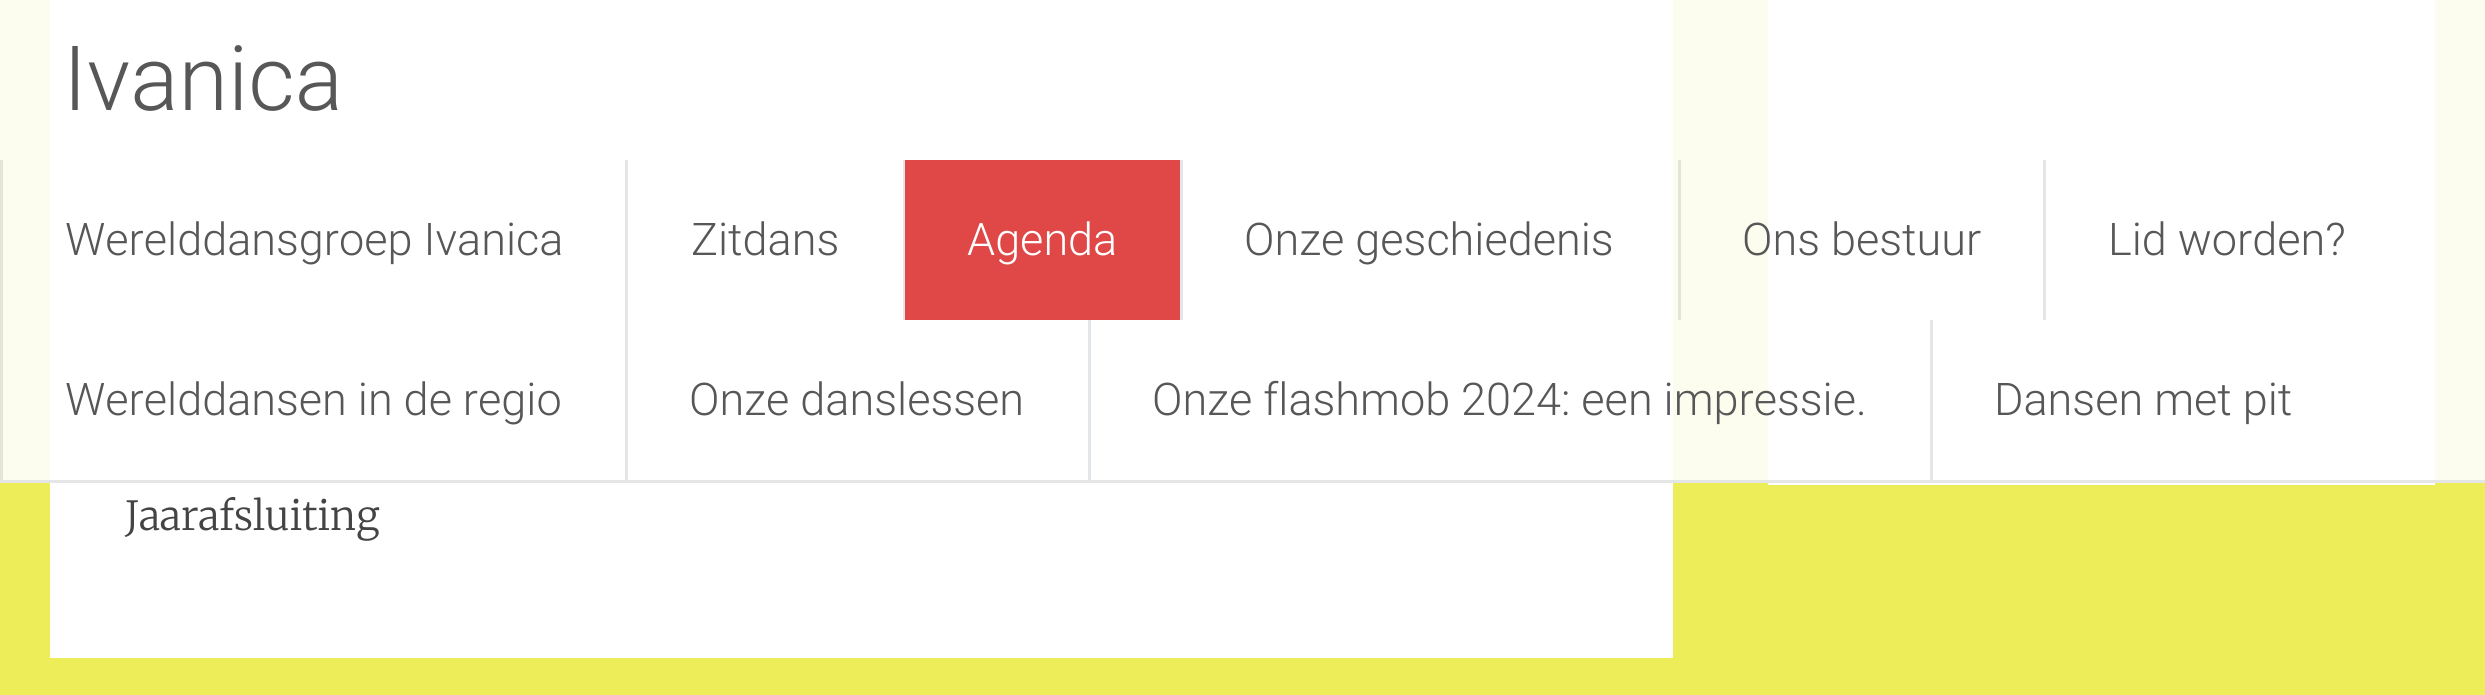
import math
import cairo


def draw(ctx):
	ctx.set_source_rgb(0.929, 0.929, 0.353)
	ctx.paint()
	ctx.set_source_rgb(1, 1, 1)
	ctx.rectangle(1768, 0, 667, 485)
	ctx.rectangle(50, 0, 1623, 658)
	ctx.fill()
	ctx.set_source_rgba(1, 1, 1, 0.9)
	ctx.rectangle(0, 0, 2485, 483)
	ctx.fill()
	ctx.set_source_rgba(0.882, 0.894, 0.902, 0.9)
	ctx.rectangle(0, 480, 2485, 3)
	ctx.fill()
	ctx.select_font_face('Roboto Light')
	ctx.set_font_size(90)
	ctx.set_source_rgb(0.341, 0.341, 0.341)
	ctx.move_to(63, 110)
	ctx.show_text('Ivanica')
	ctx.set_source_rgb(0.886, 0.898, 0.847)
	ctx.rectangle(0, 160, 3, 320)
	ctx.fill()
	ctx.set_font_size(45)
	ctx.set_source_rgb(0.341, 0.341, 0.341)
	ctx.move_to(65, 255)
	ctx.show_text('Werelddansgroep Ivanica')
	ctx.set_source_rgba(0.882, 0.894, 0.902, 0.9)
	ctx.rectangle(625, 160, 3, 160)
	ctx.fill()
	ctx.set_source_rgb(0.341, 0.341, 0.341)
	ctx.move_to(691, 255)
	ctx.show_text('Zitdans')
	ctx.set_source_rgb(0.894, 0.906, 0.914)
	ctx.rectangle(903, 160, 2, 160)
	ctx.fill()
	ctx.set_source_rgb(0.878, 0.278, 0.278)
	ctx.rectangle(905, 160, 275, 160)
	ctx.fill()
	ctx.set_source_rgb(1, 1, 1)
	ctx.move_to(967, 255)
	ctx.show_text('Agenda')
	ctx.set_source_rgb(0.894, 0.906, 0.914)
	ctx.rectangle(1180, 160, 3, 160)
	ctx.fill()
	ctx.set_source_rgb(0.341, 0.341, 0.341)
	ctx.move_to(1244, 255)
	ctx.show_text('Onze geschiedenis')
	ctx.set_source_rgb(0.886, 0.898, 0.847)
	ctx.rectangle(1678, 160, 3, 160)
	ctx.fill()
	ctx.set_source_rgb(0.341, 0.341, 0.341)
	ctx.move_to(1742, 255)
	ctx.show_text('Ons bestuur')
	ctx.set_source_rgb(0.894, 0.906, 0.914)
	ctx.rectangle(2043, 160, 3, 160)
	ctx.fill()
	ctx.set_source_rgb(0.341, 0.341, 0.341)
	ctx.move_to(2108, 255)
	ctx.show_text('Lid worden?')
	ctx.move_to(65, 415)
	ctx.show_text('Werelddansen in de regio')
	ctx.set_source_rgb(0.894, 0.906, 0.914)
	ctx.rectangle(625, 320, 3, 160)
	ctx.fill()
	ctx.set_source_rgb(0.341, 0.341, 0.341)
	ctx.move_to(689, 415)
	ctx.show_text('Onze danslessen')
	ctx.set_source_rgb(0.894, 0.906, 0.914)
	ctx.rectangle(1088, 320, 3, 160)
	ctx.fill()
	ctx.set_source_rgb(0.341, 0.341, 0.341)
	ctx.move_to(1152, 415)
	ctx.show_text('Onze flashmob 2024: een impressie.')
	ctx.set_source_rgb(0.894, 0.906, 0.914)
	ctx.rectangle(1930, 320, 3, 160)
	ctx.fill()
	ctx.set_source_rgb(0.341, 0.341, 0.341)
	ctx.move_to(1994, 415)
	ctx.show_text('Dansen met pit')
	ctx.select_font_face('Merriweather Light')
	ctx.set_font_size(40)
	ctx.set_source_rgb(0.267, 0.267, 0.267)
	ctx.move_to(125, 530)
	ctx.show_text('Jaarafsluiting')


surface = cairo.ImageSurface(cairo.FORMAT_RGB24, 2485, 695)
ctx = cairo.Context(surface)
options = cairo.FontOptions()
options.set_hint_metrics(cairo.HINT_METRICS_OFF)
options.set_hint_style(cairo.HINT_STYLE_NONE)
ctx.set_font_options(options)
ctx.set_miter_limit(4)
draw(ctx)
surface.write_to_png('image.png')
